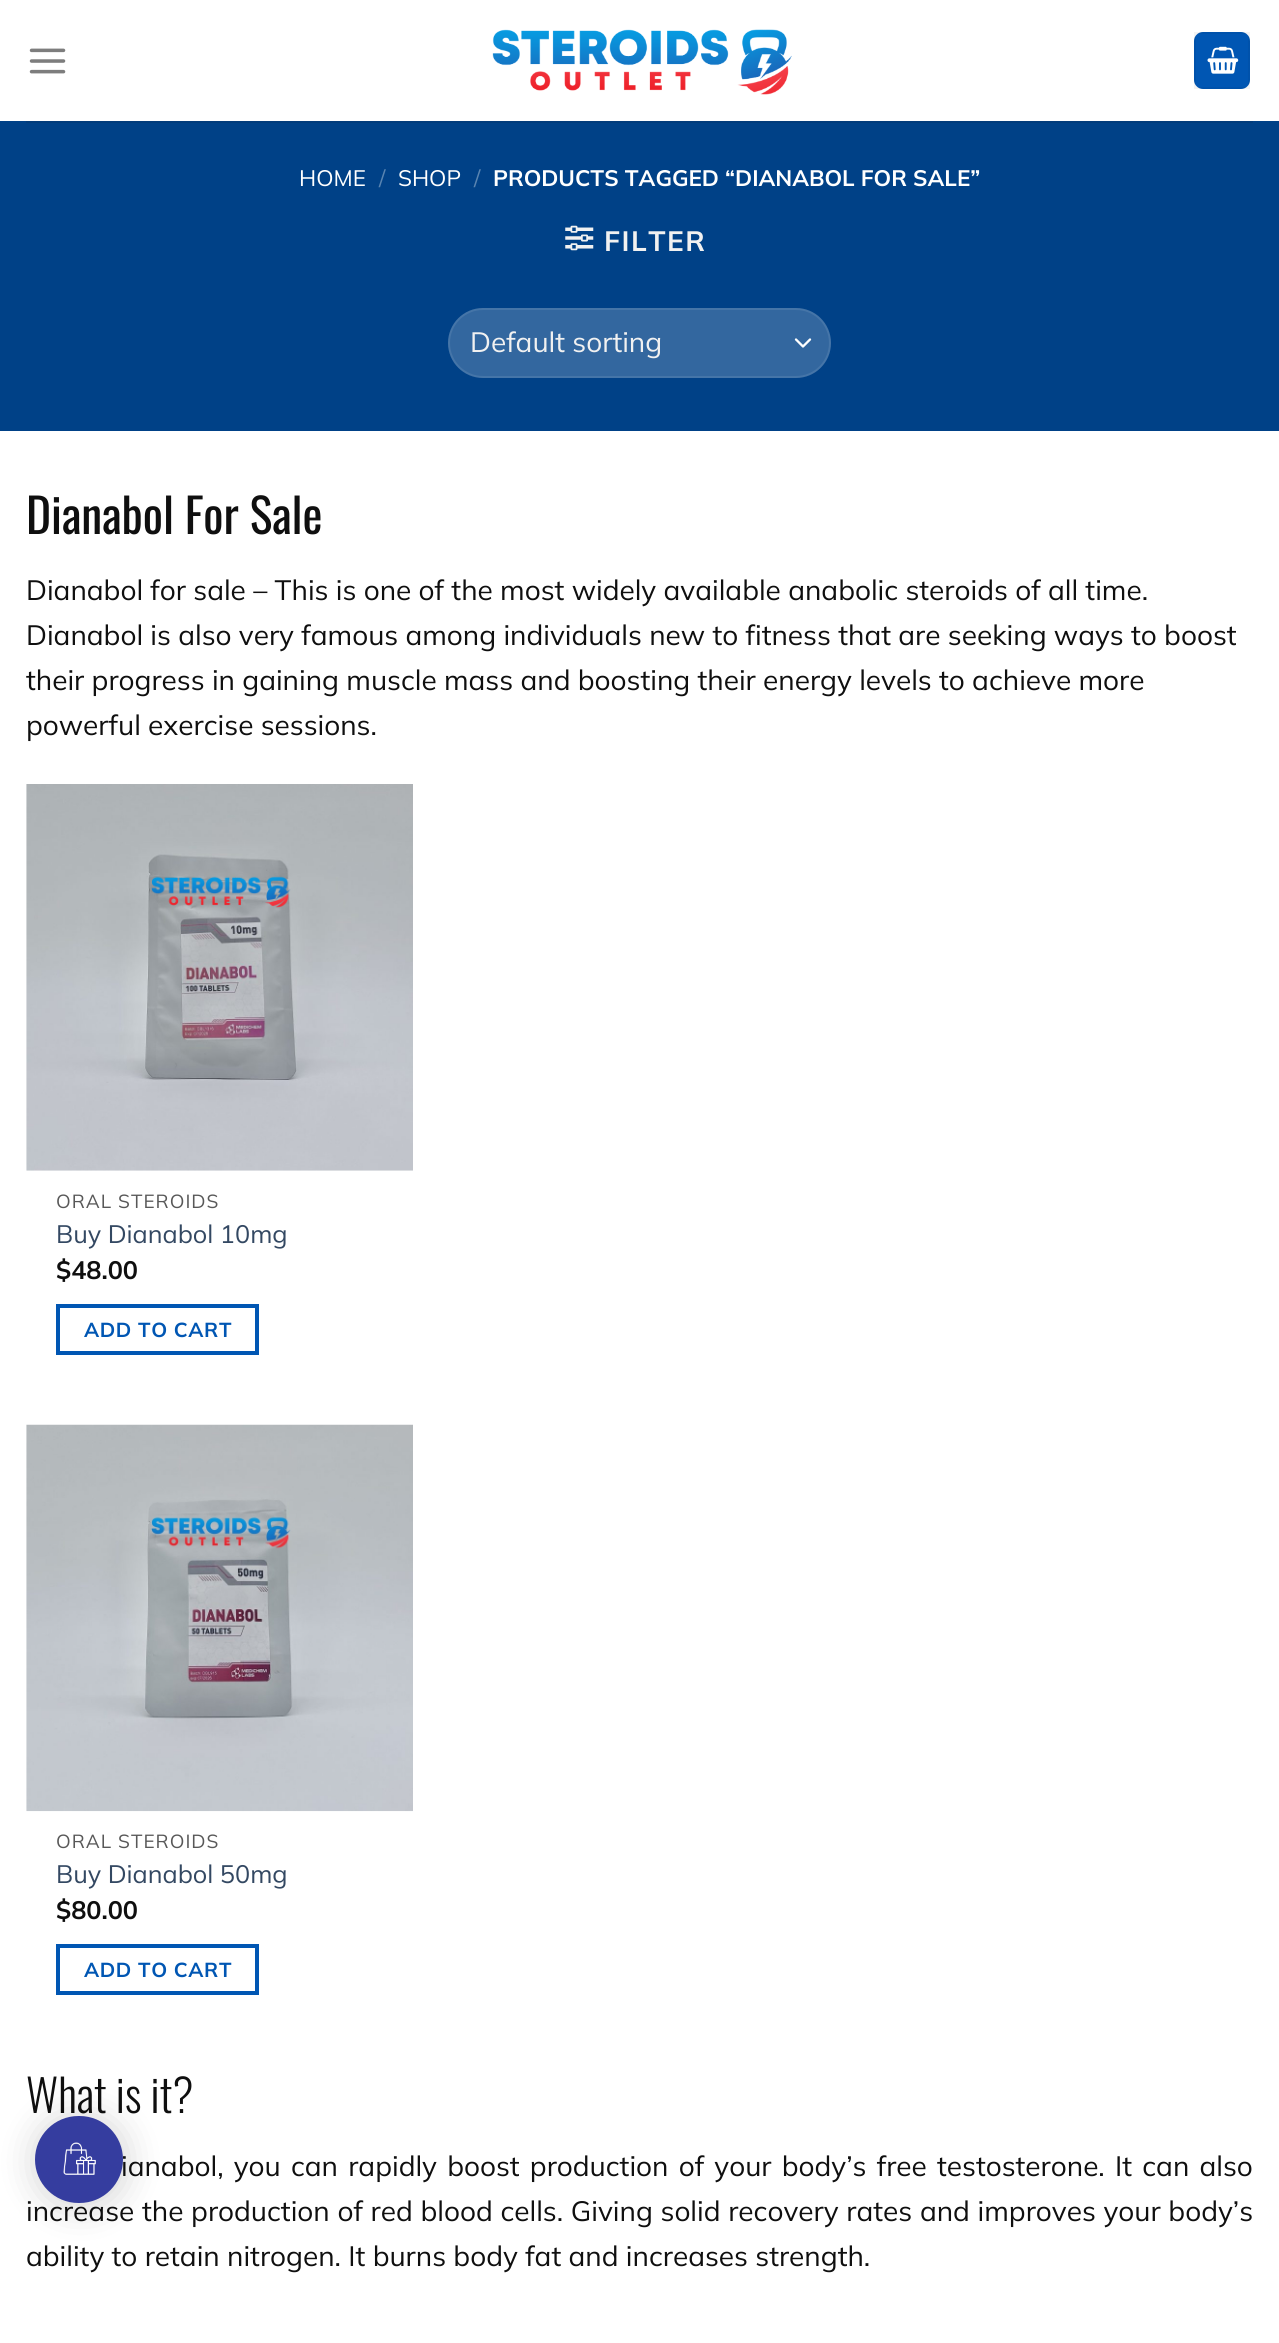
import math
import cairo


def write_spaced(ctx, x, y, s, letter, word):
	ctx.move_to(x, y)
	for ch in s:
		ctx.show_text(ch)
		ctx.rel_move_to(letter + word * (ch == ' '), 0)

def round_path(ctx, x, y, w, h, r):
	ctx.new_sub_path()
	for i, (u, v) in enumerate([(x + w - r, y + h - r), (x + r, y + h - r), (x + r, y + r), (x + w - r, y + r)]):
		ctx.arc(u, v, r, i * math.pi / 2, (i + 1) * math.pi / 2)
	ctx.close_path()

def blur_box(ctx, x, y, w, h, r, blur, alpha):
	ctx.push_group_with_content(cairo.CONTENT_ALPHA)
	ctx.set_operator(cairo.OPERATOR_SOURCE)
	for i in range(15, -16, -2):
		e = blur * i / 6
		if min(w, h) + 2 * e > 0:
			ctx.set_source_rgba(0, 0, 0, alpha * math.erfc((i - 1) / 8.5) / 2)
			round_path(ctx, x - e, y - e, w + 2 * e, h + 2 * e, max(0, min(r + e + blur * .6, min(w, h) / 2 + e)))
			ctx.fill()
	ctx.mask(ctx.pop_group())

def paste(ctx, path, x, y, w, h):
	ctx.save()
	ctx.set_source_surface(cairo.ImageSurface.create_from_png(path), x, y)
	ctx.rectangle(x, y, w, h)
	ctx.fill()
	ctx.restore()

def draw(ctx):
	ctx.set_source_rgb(1, 1, 1)
	ctx.paint()
	paste(ctx, 'media/1.png', 29, 48, 37, 26)
	paste(ctx, 'media/2.png', 492, 29, 300, 66)
	ctx.set_source_rgb(0, 0.337, 0.702)
	round_path(ctx, 1194, 32, 56, 57, 9)
	ctx.fill()
	ctx.rectangle(1195, 33, 54, 55)
	ctx.set_source_rgba(0, 0, 0, 0.05)
	ctx.stroke()
	paste(ctx, 'media/3.png', 1207, 46, 32, 28)
	ctx.set_source_rgb(0, 0.255, 0.529)
	ctx.rectangle(0, 121, 1279, 310)
	ctx.fill()
	ctx.set_source_rgb(0.008, 0.235, 0.482)
	ctx.rectangle(26, 121, 1227, 2)
	ctx.fill()
	ctx.select_font_face('Mulish')
	ctx.set_font_size(22.4)
	ctx.set_source_rgb(1, 1, 1)
	ctx.move_to(299, 186)
	ctx.show_text('HOME')
	ctx.set_source_rgb(0.349, 0.518, 0.694)
	ctx.move_to(379, 186)
	ctx.show_text('/')
	ctx.set_source_rgb(1, 1, 1)
	ctx.move_to(398, 186)
	ctx.show_text('SHOP')
	ctx.set_source_rgb(0.349, 0.518, 0.694)
	ctx.move_to(474, 186)
	ctx.show_text('/')
	ctx.select_font_face('Mulish', cairo.FONT_SLANT_NORMAL, cairo.FONT_WEIGHT_BOLD)
	ctx.set_source_rgb(1, 1, 1)
	ctx.move_to(493, 186)
	ctx.show_text('PRODUCTS TAGGED “DIANABOL FOR SALE”')
	paste(ctx, 'media/4.png', 565, 225, 29, 26)
	ctx.set_font_size(28)
	ctx.set_source_rgb(0.945, 0.945, 0.945)
	write_spaced(ctx, 604, 251, 'FILTER', 1.5, 0)
	ctx.set_source_rgb(0.2, 0.404, 0.624)
	round_path(ctx, 448, 308, 383, 70, 35)
	ctx.fill()
	ctx.new_path()
	ctx.move_to(796, 339.5)
	ctx.line_to(803, 346.5)
	ctx.line_to(810, 339.5)
	ctx.set_source_rgb(1, 1, 1)
	ctx.set_line_width(2.3)
	ctx.set_line_cap(cairo.LINE_CAP_ROUND)
	ctx.set_line_join(cairo.LINE_JOIN_ROUND)
	ctx.stroke()
	round_path(ctx, 449, 309, 381, 68, 34)
	ctx.set_source_rgba(1, 1, 1, 0.09)
	ctx.set_line_width(2)
	ctx.set_line_cap(cairo.LINE_CAP_BUTT)
	ctx.set_line_join(cairo.LINE_JOIN_MITER)
	ctx.stroke()
	ctx.select_font_face('Mulish')
	ctx.set_source_rgb(0.945, 0.945, 0.945)
	ctx.move_to(470, 352)
	ctx.show_text('Default sorting')
	ctx.select_font_face('Oswald')
	ctx.set_font_size(47.5)
	ctx.set_source_rgb(0.059, 0.059, 0.059)
	ctx.move_to(26, 534)
	ctx.show_text('Dianabol For Sale')
	ctx.select_font_face('Mulish')
	ctx.set_font_size(28)
	for x, y, s in [
		(26, 600, 'Dianabol for sale – This is one of the most widely available anabolic steroids of all time.'),
		(26, 645, 'Dianabol is also very famous among individuals new to fitness that are seeking ways to boost'),
		(26, 690, 'their progress in gaining muscle mass and boosting their energy levels to achieve more'),
		(26, 735, 'powerful exercise sessions.'),
	]:
		ctx.move_to(x, y)
		ctx.show_text(s)
	paste(ctx, 'media/5.png', 26, 784, 387, 387)
	ctx.set_font_size(19)
	ctx.set_source_rgb(0.345, 0.345, 0.345)
	write_spaced(ctx, 56, 1208, 'ORAL STEROIDS', 1, 0)
	ctx.set_font_size(25.25)
	ctx.set_source_rgb(0.2, 0.282, 0.384)
	ctx.move_to(56, 1243)
	ctx.show_text('Buy Dianabol 10mg')
	ctx.select_font_face('Mulish', cairo.FONT_SLANT_NORMAL, cairo.FONT_WEIGHT_BOLD)
	ctx.set_source_rgb(0.059, 0.059, 0.059)
	ctx.move_to(56, 1279)
	ctx.show_text('$48.00')
	ctx.rectangle(58, 1306, 199, 47)
	ctx.set_source_rgb(0, 0.337, 0.702)
	ctx.set_line_width(4)
	ctx.stroke()
	ctx.set_font_size(20.25)
	write_spaced(ctx, 84, 1337, 'ADD TO CART', 0.6, 0)
	paste(ctx, 'media/6.png', 26, 1424, 387, 388)
	ctx.select_font_face('Mulish')
	ctx.set_font_size(19)
	ctx.set_source_rgb(0.345, 0.345, 0.345)
	write_spaced(ctx, 56, 1848, 'ORAL STEROIDS', 1, 0)
	ctx.set_font_size(25.25)
	ctx.set_source_rgb(0.2, 0.282, 0.384)
	ctx.move_to(56, 1883)
	ctx.show_text('Buy Dianabol 50mg')
	ctx.select_font_face('Mulish', cairo.FONT_SLANT_NORMAL, cairo.FONT_WEIGHT_BOLD)
	ctx.set_source_rgb(0.059, 0.059, 0.059)
	ctx.move_to(56, 1919)
	ctx.show_text('$80.00')
	ctx.rectangle(58, 1946, 199, 47)
	ctx.set_source_rgb(0, 0.337, 0.702)
	ctx.stroke()
	ctx.set_font_size(20.25)
	write_spaced(ctx, 84, 1977, 'ADD TO CART', 0.6, 0)
	ctx.select_font_face('Oswald Light')
	ctx.set_font_size(45)
	ctx.set_source_rgb(0.059, 0.059, 0.059)
	ctx.move_to(26, 2113)
	ctx.show_text('What is it?')
	ctx.select_font_face('Mulish')
	ctx.set_font_size(28)
	write_spaced(ctx, 121, 2176, 'ianabol, you can rapidly boost production of your body’s free testosterone. It can also', 0, 2.9)
	write_spaced(ctx, 26, 2221, 'increase the production of red blood cells. Giving solid recovery rates and improves your body’s', 0, 0.4)
	ctx.move_to(26, 2266)
	ctx.show_text('ability to retain nitrogen. It burns body fat and increases strength.')
	ctx.set_source_rgb(0, 0, 0)
	blur_box(ctx, 33, 2114, 95, 95, 47.5, 17.5, 0.15)
	ctx.set_source_rgb(0.208, 0.239, 0.624)
	round_path(ctx, 35, 2116, 88, 87, 43.5)
	ctx.fill()
	paste(ctx, 'media/7.png', 63, 2142, 33, 33)


surface = cairo.ImageSurface(cairo.FORMAT_RGB24, 1279, 2343)
ctx = cairo.Context(surface)
options = cairo.FontOptions()
options.set_hint_metrics(cairo.HINT_METRICS_OFF)
options.set_hint_style(cairo.HINT_STYLE_NONE)
ctx.set_font_options(options)
ctx.set_miter_limit(4)
draw(ctx)
surface.write_to_png('image.png')
